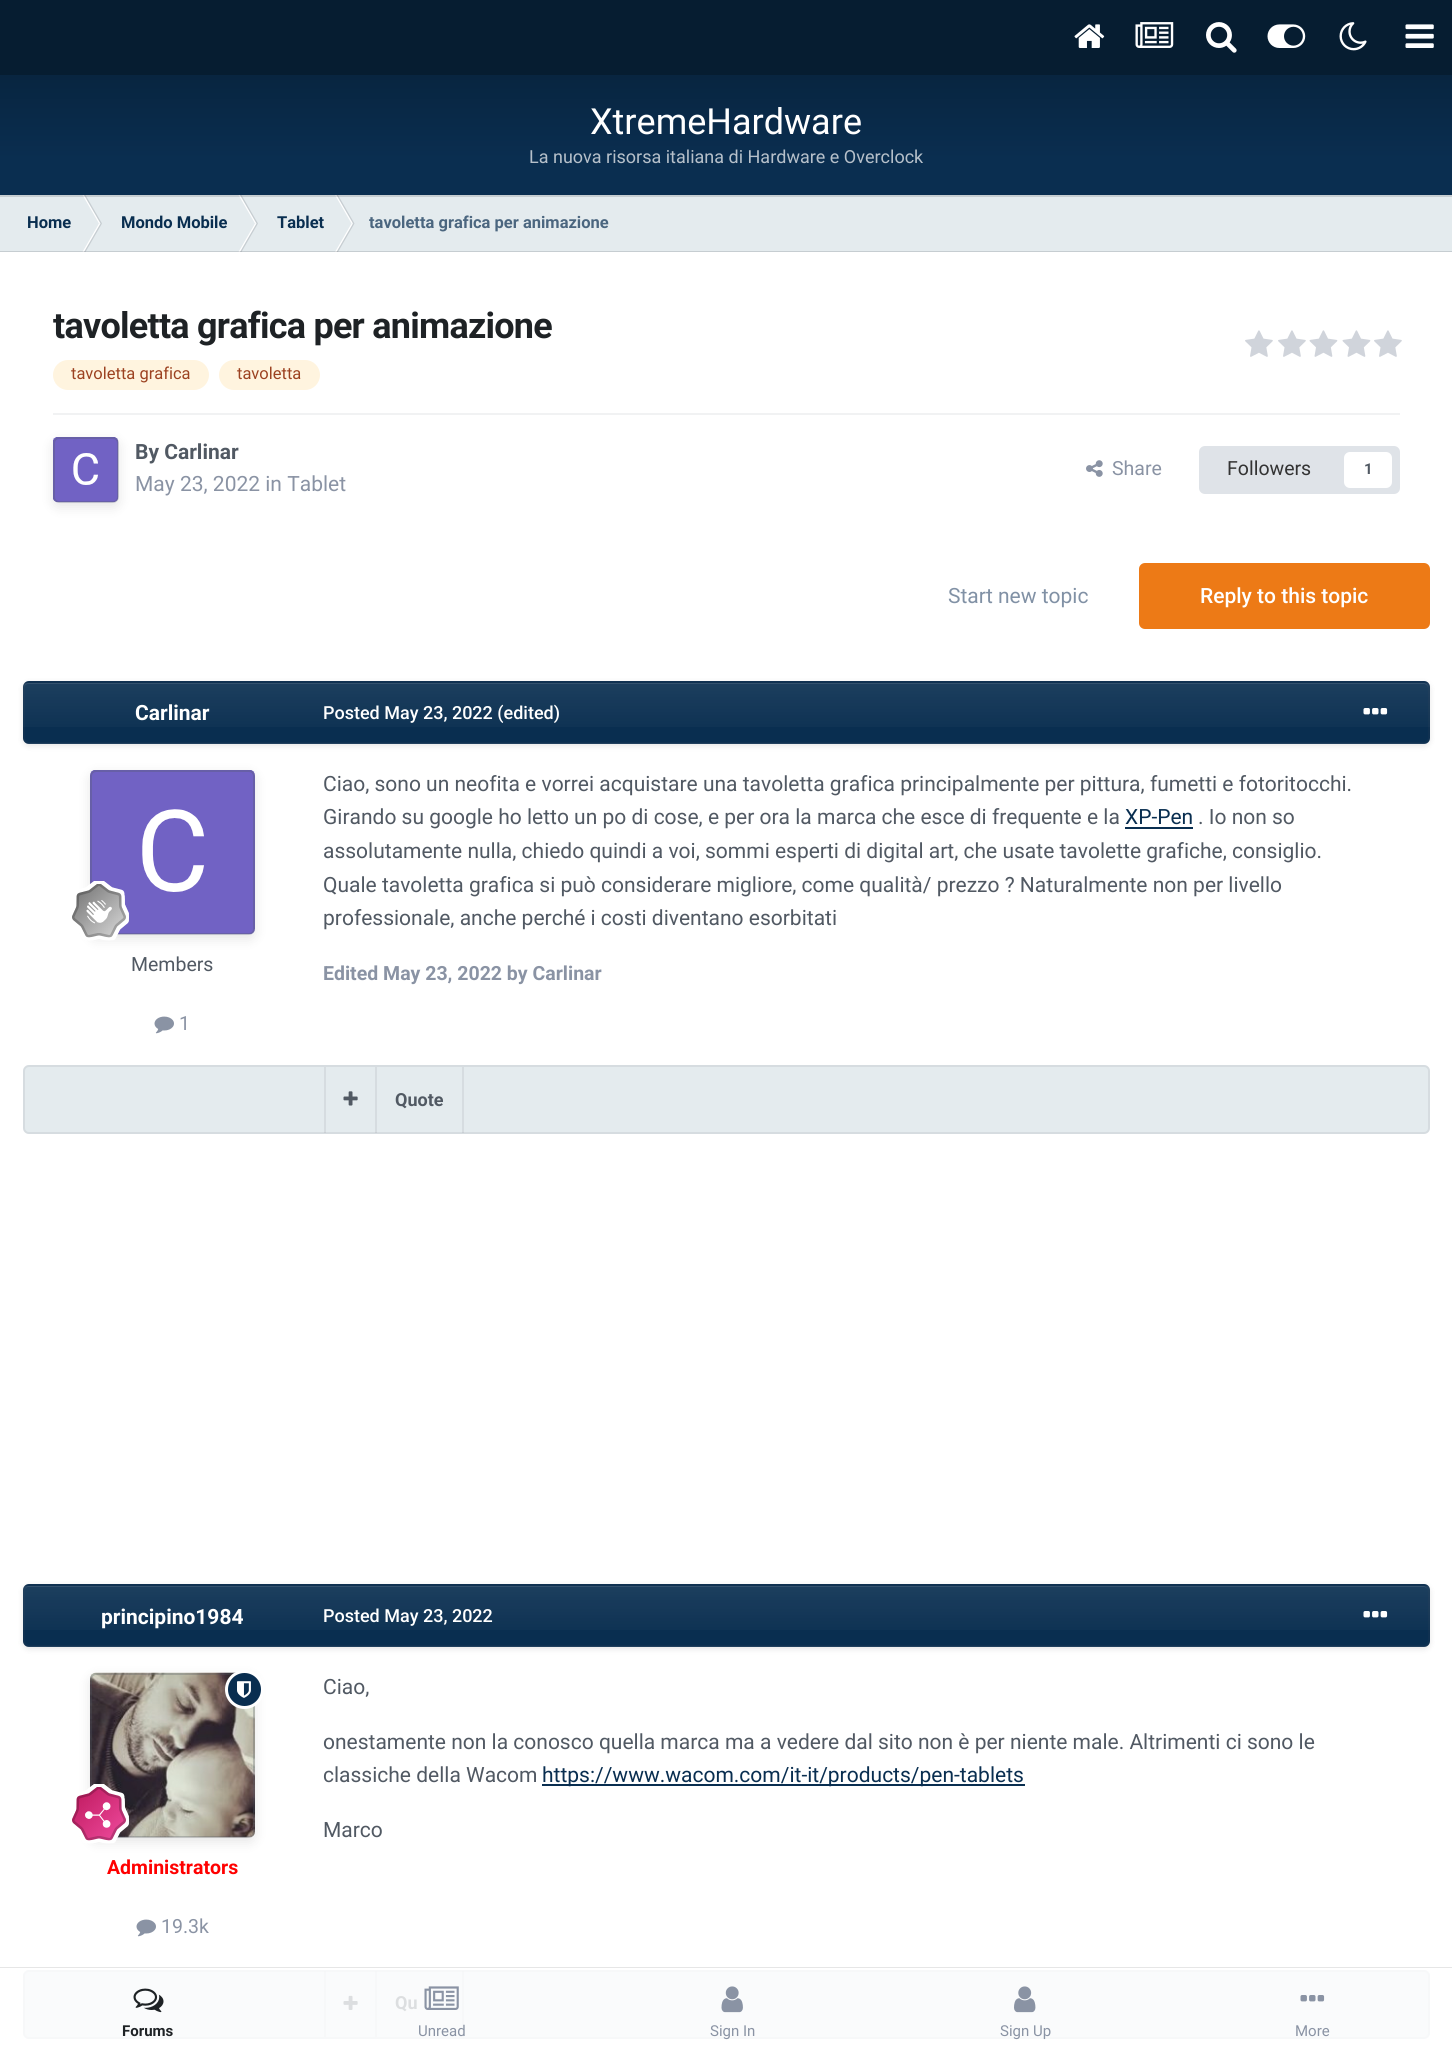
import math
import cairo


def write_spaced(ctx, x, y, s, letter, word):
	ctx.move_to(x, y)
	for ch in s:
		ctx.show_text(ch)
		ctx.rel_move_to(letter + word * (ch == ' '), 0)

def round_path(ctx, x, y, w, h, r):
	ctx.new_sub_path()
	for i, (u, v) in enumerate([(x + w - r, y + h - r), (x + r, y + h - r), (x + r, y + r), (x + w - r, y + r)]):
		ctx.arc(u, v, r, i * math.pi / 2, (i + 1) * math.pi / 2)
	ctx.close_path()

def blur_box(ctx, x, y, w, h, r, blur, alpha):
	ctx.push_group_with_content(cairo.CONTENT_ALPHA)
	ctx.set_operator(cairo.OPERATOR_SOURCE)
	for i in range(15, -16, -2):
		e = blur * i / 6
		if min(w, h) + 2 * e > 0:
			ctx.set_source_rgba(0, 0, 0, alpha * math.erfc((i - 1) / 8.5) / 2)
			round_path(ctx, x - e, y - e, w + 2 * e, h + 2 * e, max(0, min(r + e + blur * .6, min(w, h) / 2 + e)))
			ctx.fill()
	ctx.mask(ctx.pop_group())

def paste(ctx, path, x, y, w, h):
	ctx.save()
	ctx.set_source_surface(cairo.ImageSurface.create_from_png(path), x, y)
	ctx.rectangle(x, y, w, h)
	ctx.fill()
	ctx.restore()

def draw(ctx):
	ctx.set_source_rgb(0.027, 0.114, 0.192)
	ctx.paint()
	paste(ctx, 'media/1.png', 1074, 24, 31, 24)
	paste(ctx, 'media/2.png', 1135, 22, 39, 26)
	paste(ctx, 'media/3.png', 1206, 22, 31, 31)
	paste(ctx, 'media/4.png', 1267, 24, 39, 24)
	paste(ctx, 'media/5.png', 1339, 22, 28, 29)
	paste(ctx, 'media/6.png', 1405, 24, 29, 24)
	gradient = cairo.LinearGradient(726, 75, 726, 195)
	gradient.add_color_stop_rgba(0, 0.031, 0.145, 0.251, 1)
	gradient.add_color_stop_rgba(0.7, 0.039, 0.18, 0.314, 1)
	ctx.set_source(gradient)
	ctx.rectangle(0, 75, 1452, 120)
	ctx.fill()
	ctx.select_font_face('Roboto')
	ctx.set_font_size(36)
	ctx.set_source_rgb(1, 1, 1)
	ctx.move_to(590, 134)
	ctx.show_text('XtremeHardware')
	ctx.set_font_size(18)
	ctx.set_source_rgb(0.714, 0.753, 0.792)
	ctx.move_to(529, 163)
	ctx.show_text('La nuova risorsa italiana di Hardware e Overclock')
	ctx.set_source_rgb(1, 1, 1)
	ctx.rectangle(0, 252, 1452, 1715)
	ctx.rectangle(0, 1968, 1452, 89)
	ctx.fill()
	ctx.set_source_rgb(0.894, 0.918, 0.933)
	ctx.rectangle(0, 195, 1452, 57)
	ctx.fill()
	ctx.set_source_rgb(1, 1, 1)
	ctx.new_path()
	ctx.move_to(82.5, 195)
	ctx.line_to(84, 195)
	ctx.line_to(100.5, 223.5)
	ctx.line_to(99, 223.5)
	ctx.close_path()
	ctx.fill()
	ctx.set_source_rgba(0.318, 0.349, 0.388, 0.2)
	ctx.new_path()
	ctx.move_to(84, 195)
	ctx.line_to(85.5, 195)
	ctx.line_to(102, 223.5)
	ctx.line_to(100.5, 223.5)
	ctx.close_path()
	ctx.fill()
	ctx.set_source_rgb(1, 1, 1)
	ctx.new_path()
	ctx.move_to(238.5, 195)
	ctx.line_to(240, 195)
	ctx.line_to(256.5, 223.5)
	ctx.line_to(255, 223.5)
	ctx.close_path()
	ctx.fill()
	ctx.set_source_rgba(0.318, 0.349, 0.388, 0.2)
	ctx.new_path()
	ctx.move_to(240, 195)
	ctx.line_to(241.5, 195)
	ctx.line_to(258, 223.5)
	ctx.line_to(256.5, 223.5)
	ctx.close_path()
	ctx.fill()
	ctx.set_source_rgb(1, 1, 1)
	ctx.new_path()
	ctx.move_to(335, 195)
	ctx.line_to(336.5, 195)
	ctx.line_to(353, 223.5)
	ctx.line_to(351.5, 223.5)
	ctx.close_path()
	ctx.fill()
	ctx.set_source_rgba(0.318, 0.349, 0.388, 0.2)
	ctx.new_path()
	ctx.move_to(336.5, 195)
	ctx.line_to(338, 195)
	ctx.line_to(354.5, 223.5)
	ctx.line_to(353, 223.5)
	ctx.close_path()
	ctx.fill()
	ctx.rectangle(0, 195, 1452, 2)
	ctx.fill()
	ctx.set_source_rgb(1, 1, 1)
	ctx.new_path()
	ctx.move_to(82.5, 252)
	ctx.line_to(84, 252)
	ctx.line_to(100.5, 223.5)
	ctx.line_to(99, 223.5)
	ctx.close_path()
	ctx.fill()
	ctx.set_source_rgba(0.318, 0.349, 0.388, 0.2)
	ctx.new_path()
	ctx.move_to(84, 252)
	ctx.line_to(85.5, 252)
	ctx.line_to(102, 223.5)
	ctx.line_to(100.5, 223.5)
	ctx.close_path()
	ctx.fill()
	ctx.set_source_rgb(1, 1, 1)
	ctx.new_path()
	ctx.move_to(238.5, 252)
	ctx.line_to(240, 252)
	ctx.line_to(256.5, 223.5)
	ctx.line_to(255, 223.5)
	ctx.close_path()
	ctx.fill()
	ctx.set_source_rgba(0.318, 0.349, 0.388, 0.2)
	ctx.new_path()
	ctx.move_to(240, 252)
	ctx.line_to(241.5, 252)
	ctx.line_to(258, 223.5)
	ctx.line_to(256.5, 223.5)
	ctx.close_path()
	ctx.fill()
	ctx.set_source_rgb(1, 1, 1)
	ctx.new_path()
	ctx.move_to(335, 252)
	ctx.line_to(336.5, 252)
	ctx.line_to(353, 223.5)
	ctx.line_to(351.5, 223.5)
	ctx.close_path()
	ctx.fill()
	ctx.set_source_rgba(0.318, 0.349, 0.388, 0.2)
	ctx.new_path()
	ctx.move_to(336.5, 252)
	ctx.line_to(338, 252)
	ctx.line_to(354.5, 223.5)
	ctx.line_to(353, 223.5)
	ctx.close_path()
	ctx.fill()
	ctx.rectangle(0, 251, 1452, 1)
	ctx.fill()
	ctx.select_font_face('Roboto', cairo.FONT_SLANT_NORMAL, cairo.FONT_WEIGHT_BOLD)
	ctx.set_font_size(16.5)
	ctx.set_source_rgb(0.039, 0.18, 0.314)
	for x, y, s in [
		(27, 228, 'Home'),
		(121, 228, 'Mondo Mobile'),
		(277, 228, 'Tablet'),
	]:
		ctx.move_to(x, y)
		ctx.show_text(s)
	ctx.set_source_rgb(0.294, 0.4, 0.498)
	ctx.move_to(369, 228)
	ctx.show_text('tavoletta grafica per animazione')
	ctx.set_font_size(36)
	ctx.set_source_rgb(0.118, 0.133, 0.145)
	write_spaced(ctx, 53, 338, 'tavoletta grafica per animazione', -0.75, 0)
	ctx.set_source_rgb(1, 0.957, 0.875)
	round_path(ctx, 53, 360, 156, 30, 15)
	ctx.fill()
	ctx.select_font_face('Roboto')
	ctx.set_font_size(16.5)
	ctx.set_source_rgb(0.612, 0.259, 0.129)
	ctx.move_to(71, 379)
	ctx.show_text('tavoletta grafica')
	ctx.set_source_rgb(1, 0.957, 0.875)
	round_path(ctx, 219, 360, 101, 30, 15)
	ctx.fill()
	ctx.set_source_rgb(0.612, 0.259, 0.129)
	ctx.move_to(237, 379)
	ctx.show_text('tavoletta')
	paste(ctx, 'media/7.png', 1245, 330, 28, 27)
	paste(ctx, 'media/7.png', 1278, 330, 28, 27)
	paste(ctx, 'media/8.png', 1309, 330, 29, 27)
	paste(ctx, 'media/8.png', 1342, 330, 29, 27)
	paste(ctx, 'media/7.png', 1374, 330, 28, 27)
	ctx.set_source_rgb(0.945, 0.949, 0.953)
	ctx.rectangle(53, 413, 1347, 2)
	ctx.fill()
	paste(ctx, 'media/9.png', 53, 437, 66, 66)
	ctx.save()
	ctx.set_fill_rule(cairo.FILL_RULE_EVEN_ODD)
	ctx.new_path()
	ctx.move_to(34, 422)
	ctx.line_to(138, 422)
	ctx.line_to(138, 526)
	ctx.line_to(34, 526)
	ctx.close_path()
	ctx.move_to(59, 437)
	ctx.line_to(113, 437)
	ctx.curve_to(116.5, 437, 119, 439.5, 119, 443)
	ctx.line_to(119, 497)
	ctx.curve_to(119, 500.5, 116.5, 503, 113, 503)
	ctx.line_to(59, 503)
	ctx.curve_to(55.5, 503, 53, 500.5, 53, 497)
	ctx.line_to(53, 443)
	ctx.curve_to(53, 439.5, 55.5, 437, 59, 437)
	ctx.close_path()
	ctx.clip()
	ctx.set_source_rgb(0, 0, 0)
	blur_box(ctx, 53, 441, 66, 66, 6, 6, 0.1)
	ctx.restore()
	round_path(ctx, 54, 438, 64, 64, 5)
	ctx.set_source_rgba(0.318, 0.349, 0.388, 0.3)
	ctx.stroke()
	ctx.select_font_face('Roboto', cairo.FONT_SLANT_NORMAL, cairo.FONT_WEIGHT_BOLD)
	ctx.set_font_size(21)
	ctx.set_source_rgb(0.318, 0.349, 0.388)
	ctx.move_to(135, 459)
	ctx.show_text('By Carlinar')
	ctx.select_font_face('Roboto')
	ctx.set_source_rgb(0.541, 0.576, 0.643)
	ctx.move_to(135, 491)
	ctx.show_text('May 23, 2022 in Tablet')
	paste(ctx, 'media/10.png', 1086, 460, 17, 17)
	ctx.set_font_size(19.5)
	ctx.move_to(1112, 475)
	ctx.show_text('Share')
	ctx.set_source_rgb(0.875, 0.89, 0.91)
	round_path(ctx, 1199, 446, 201, 48, 6)
	ctx.fill()
	ctx.set_source_rgb(0.2, 0.2, 0.2)
	ctx.move_to(1227, 475)
	ctx.show_text('Followers')
	ctx.set_source_rgb(1, 1, 1)
	round_path(ctx, 1344, 452, 48, 36, 6)
	ctx.fill()
	ctx.select_font_face('Roboto', cairo.FONT_SLANT_NORMAL, cairo.FONT_WEIGHT_BOLD)
	ctx.set_font_size(15)
	ctx.set_source_rgb(0.318, 0.349, 0.388)
	ctx.move_to(1364, 474)
	ctx.show_text('1')
	ctx.select_font_face('Roboto')
	ctx.set_font_size(21)
	ctx.set_source_rgb(0.506, 0.569, 0.647)
	ctx.move_to(948, 603)
	ctx.show_text('Start new topic')
	ctx.set_source_rgb(0.929, 0.478, 0.086)
	round_path(ctx, 1139, 563, 291, 66, 6)
	ctx.fill()
	ctx.select_font_face('Roboto Medium')
	ctx.set_source_rgb(1, 1, 1)
	ctx.move_to(1200, 603)
	ctx.show_text('Reply to this topic')
	ctx.set_source_rgb(0, 0, 0)
	blur_box(ctx, 23, 683, 1407, 63, 6, 3, 0.1)
	ctx.set_source_rgb(0.039, 0.18, 0.314)
	round_path(ctx, 23, 681, 1407, 63, 6)
	ctx.fill()
	gradient = cairo.LinearGradient(726, 682, 726, 743)
	gradient.add_color_stop_rgba(0, 1, 1, 1, 0.08)
	gradient.add_color_stop_rgba(1, 1, 1, 1, 0)
	ctx.set_source(gradient)
	ctx.rectangle(23, 683, 1407, 44)
	ctx.fill()
	ctx.save()
	round_path(ctx, 23, 681, 1407, 63, 6)
	ctx.clip()
	gradient = cairo.LinearGradient(726, 742, 726, 803)
	gradient.add_color_stop_rgba(0, 1, 1, 1, 0.08)
	gradient.add_color_stop_rgba(1, 1, 1, 1, 0)
	ctx.set_source(gradient)
	ctx.rectangle(23, 743, 1407, 1)
	ctx.fill()
	ctx.restore()
	ctx.set_source_rgb(0.204, 0.322, 0.431)
	ctx.new_path()
	ctx.move_to(28, 684)
	ctx.line_to(1424, 684)
	ctx.curve_to(1426, 684, 1428, 686, 1428, 688)
	ctx.curve_to(1428, 685, 1426, 683, 1423, 683)
	ctx.line_to(29, 683)
	ctx.curve_to(26, 683, 24, 685, 24, 688)
	ctx.curve_to(24, 686, 26, 684, 28, 684)
	ctx.close_path()
	ctx.fill()
	round_path(ctx, 24, 682, 1405, 61, 5)
	ctx.set_source_rgba(0.318, 0.349, 0.388, 0.1)
	ctx.stroke()
	ctx.select_font_face('Roboto', cairo.FONT_SLANT_NORMAL, cairo.FONT_WEIGHT_BOLD)
	ctx.set_source_rgb(1, 1, 1)
	ctx.move_to(135, 720)
	ctx.show_text('Carlinar')
	paste(ctx, 'media/11.png', 90, 770, 165, 165)
	ctx.save()
	ctx.set_fill_rule(cairo.FILL_RULE_EVEN_ODD)
	ctx.new_path()
	ctx.move_to(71, 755)
	ctx.line_to(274, 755)
	ctx.line_to(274, 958)
	ctx.line_to(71, 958)
	ctx.close_path()
	ctx.move_to(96, 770)
	ctx.line_to(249, 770)
	ctx.curve_to(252.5, 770, 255, 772.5, 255, 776)
	ctx.line_to(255, 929)
	ctx.curve_to(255, 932.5, 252.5, 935, 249, 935)
	ctx.line_to(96, 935)
	ctx.curve_to(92.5, 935, 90, 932.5, 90, 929)
	ctx.line_to(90, 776)
	ctx.curve_to(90, 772.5, 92.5, 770, 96, 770)
	ctx.close_path()
	ctx.clip()
	ctx.set_source_rgb(0, 0, 0)
	blur_box(ctx, 90, 774, 165, 165, 6, 6, 0.1)
	ctx.restore()
	round_path(ctx, 91, 771, 163, 163, 5)
	ctx.set_source_rgba(0.318, 0.349, 0.388, 0.3)
	ctx.stroke()
	paste(ctx, 'media/12.png', 72, 881, 57, 60)
	ctx.select_font_face('Roboto')
	ctx.set_font_size(19.5)
	ctx.set_source_rgb(0.318, 0.349, 0.388)
	ctx.move_to(131, 971)
	ctx.show_text('Members')
	paste(ctx, 'media/13.png', 154, 1016, 20, 18)
	ctx.set_source_rgb(0.541, 0.576, 0.643)
	ctx.move_to(179, 1030)
	ctx.show_text('1')
	ctx.select_font_face('Roboto Medium')
	ctx.set_font_size(18)
	ctx.set_source_rgb(1, 1, 1)
	ctx.move_to(323, 719)
	ctx.show_text('Posted May 23, 2022 (edited)')
	paste(ctx, 'media/14.png', 1363, 708, 25, 7)
	ctx.select_font_face('Roboto')
	ctx.set_font_size(21)
	ctx.set_source_rgb(0.318, 0.349, 0.388)
	ctx.move_to(323, 791)
	ctx.show_text('Ciao, sono un neofita e vorrei acquistare una tavoletta grafica principalmente per pittura, fumetti e fotoritocchi.')
	ctx.move_to(323, 824)
	ctx.show_text('Girando su google ho letto un po di cose, e per ora la marca che esce di frequente e la')
	ctx.set_source_rgb(0.039, 0.18, 0.314)
	ctx.move_to(1125, 824)
	ctx.show_text('XP-Pen')
	ctx.rectangle(1125, 827, 68, 2)
	ctx.fill()
	ctx.set_source_rgb(0.318, 0.349, 0.388)
	for x, y, s in [
		(1198, 824, '. Io non so'),
		(323, 858, 'assolutamente nulla, chiedo quindi a voi, sommi esperti di digital art, che usate tavolette grafiche, consiglio.'),
		(323, 892, 'Quale tavoletta grafica si può considerare migliore, come qualità/ prezzo ? Naturalmente non per livello'),
		(323, 925, 'professionale, anche perché i costi diventano esorbitati'),
	]:
		ctx.move_to(x, y)
		ctx.show_text(s)
	ctx.select_font_face('Roboto', cairo.FONT_SLANT_NORMAL, cairo.FONT_WEIGHT_BOLD)
	ctx.set_font_size(19.5)
	ctx.set_source_rgb(0.541, 0.576, 0.643)
	ctx.move_to(323, 980)
	ctx.show_text('Edited May 23, 2022 by Carlinar')
	ctx.set_source_rgb(0.894, 0.918, 0.933)
	round_path(ctx, 23, 1065, 1407, 69, 6)
	ctx.fill()
	round_path(ctx, 24, 1066, 1405, 67, 5)
	ctx.set_source_rgba(0.318, 0.349, 0.388, 0.1)
	ctx.stroke()
	ctx.rectangle(324, 1067, 2, 66)
	ctx.fill()
	ctx.rectangle(375, 1067, 2, 66)
	ctx.fill()
	paste(ctx, 'media/15.png', 343, 1091, 15, 15)
	ctx.rectangle(462, 1067, 2, 66)
	ctx.fill()
	ctx.set_font_size(18)
	ctx.set_source_rgb(0.318, 0.349, 0.388)
	ctx.move_to(395, 1106)
	ctx.show_text('Quote')
	ctx.set_source_rgb(0, 0, 0)
	blur_box(ctx, 23, 1586, 1407, 63, 6, 3, 0.1)
	ctx.set_source_rgb(0.039, 0.18, 0.314)
	round_path(ctx, 23, 1584, 1407, 63, 6)
	ctx.fill()
	gradient = cairo.LinearGradient(726, 1586, 726, 1646)
	gradient.add_color_stop_rgba(0, 1, 1, 1, 0.08)
	gradient.add_color_stop_rgba(1, 1, 1, 1, 0)
	ctx.set_source(gradient)
	ctx.rectangle(23, 1586, 1407, 44)
	ctx.fill()
	ctx.save()
	round_path(ctx, 23, 1584, 1407, 63, 6)
	ctx.clip()
	gradient = cairo.LinearGradient(726, 1646, 726, 1706)
	gradient.add_color_stop_rgba(0, 1, 1, 1, 0.08)
	gradient.add_color_stop_rgba(1, 1, 1, 1, 0)
	ctx.set_source(gradient)
	ctx.rectangle(23, 1646, 1407, 1)
	ctx.fill()
	ctx.restore()
	ctx.set_source_rgb(0.204, 0.322, 0.431)
	ctx.new_path()
	ctx.move_to(28, 1587)
	ctx.line_to(1424, 1587)
	ctx.curve_to(1426, 1587, 1428, 1589, 1428, 1592)
	ctx.curve_to(1428, 1589, 1426, 1586, 1423, 1586)
	ctx.line_to(29, 1586)
	ctx.curve_to(26, 1586, 24, 1589, 24, 1592)
	ctx.curve_to(24, 1589, 26, 1587, 28, 1587)
	ctx.close_path()
	ctx.fill()
	round_path(ctx, 24, 1585, 1405, 61, 5)
	ctx.set_source_rgba(0.318, 0.349, 0.388, 0.1)
	ctx.stroke()
	ctx.set_font_size(21)
	ctx.set_source_rgb(1, 1, 1)
	ctx.move_to(101, 1624)
	ctx.show_text('principino1984')
	paste(ctx, 'media/16.png', 90, 1672, 165, 166)
	ctx.save()
	ctx.set_fill_rule(cairo.FILL_RULE_EVEN_ODD)
	ctx.new_path()
	ctx.move_to(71, 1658)
	ctx.line_to(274, 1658)
	ctx.line_to(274, 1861)
	ctx.line_to(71, 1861)
	ctx.close_path()
	ctx.move_to(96, 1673)
	ctx.line_to(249, 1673)
	ctx.curve_to(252.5, 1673, 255, 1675.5, 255, 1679)
	ctx.line_to(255, 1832)
	ctx.curve_to(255, 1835.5, 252.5, 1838, 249, 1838)
	ctx.line_to(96, 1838)
	ctx.curve_to(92.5, 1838, 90, 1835.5, 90, 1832)
	ctx.line_to(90, 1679)
	ctx.curve_to(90, 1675.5, 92.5, 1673, 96, 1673)
	ctx.close_path()
	ctx.clip()
	ctx.set_source_rgb(0, 0, 0)
	blur_box(ctx, 90, 1677, 165, 165, 6, 6, 0.1)
	ctx.restore()
	round_path(ctx, 91, 1674, 163, 163, 5)
	ctx.set_source_rgba(0.318, 0.349, 0.388, 0.3)
	ctx.stroke()
	ctx.set_source_rgb(0.039, 0.18, 0.314)
	ctx.arc(244.5, 1689.5, 18, 0, 2 * math.pi)
	ctx.fill_preserve()
	ctx.set_source_rgb(1, 1, 1)
	ctx.set_line_width(3)
	ctx.stroke()
	paste(ctx, 'media/17.png', 237, 1681, 14, 17)
	paste(ctx, 'media/18.png', 72, 1784, 57, 60)
	ctx.set_font_size(19.5)
	ctx.set_source_rgb(1, 0, 0)
	ctx.move_to(107, 1874)
	ctx.show_text('Administrators')
	paste(ctx, 'media/13.png', 136, 1919, 20, 18)
	ctx.select_font_face('Roboto')
	ctx.set_source_rgb(0.541, 0.576, 0.643)
	ctx.move_to(161, 1933)
	ctx.show_text('19.3k')
	ctx.select_font_face('Roboto Medium')
	ctx.set_font_size(18)
	ctx.set_source_rgb(1, 1, 1)
	ctx.move_to(323, 1622)
	ctx.show_text('Posted May 23, 2022')
	paste(ctx, 'media/14.png', 1363, 1611, 25, 7)
	ctx.select_font_face('Roboto')
	ctx.set_font_size(21)
	ctx.set_source_rgb(0.318, 0.349, 0.388)
	for x, y, s in [
		(323, 1694, 'Ciao,'),
		(323, 1749, 'onestamente non la conosco quella marca ma a vedere dal sito non è per niente male. Altrimenti ci sono le'),
		(323, 1782, 'classiche della Wacom'),
	]:
		ctx.move_to(x, y)
		ctx.show_text(s)
	ctx.set_source_rgb(0.039, 0.18, 0.314)
	ctx.rectangle(542, 1784, 483, 2)
	ctx.fill()
	ctx.move_to(542, 1782)
	ctx.show_text('https://www.wacom.com/it-it/products/pen-tablets')
	ctx.set_source_rgb(0.318, 0.349, 0.388)
	ctx.move_to(323, 1837)
	ctx.show_text('Marco')
	ctx.set_source_rgb(0.98, 0.984, 0.988)
	round_path(ctx, 23, 1970, 1407, 69, 6)
	ctx.fill()
	round_path(ctx, 24, 1971, 1405, 67, 5)
	ctx.set_source_rgba(0.863, 0.871, 0.878, 0.1)
	ctx.set_line_width(2)
	ctx.stroke()
	ctx.rectangle(324, 1971, 2, 66)
	ctx.fill()
	ctx.rectangle(375, 1971, 2, 66)
	ctx.fill()
	paste(ctx, 'media/19.png', 343, 1995, 15, 15)
	ctx.rectangle(462, 1971, 2, 66)
	ctx.fill()
	ctx.select_font_face('Roboto', cairo.FONT_SLANT_NORMAL, cairo.FONT_WEIGHT_BOLD)
	ctx.set_font_size(18)
	ctx.set_source_rgb(0.863, 0.871, 0.878)
	ctx.move_to(395, 2009)
	ctx.show_text('Qu')
	ctx.set_source_rgb(0.902, 0.902, 0.902)
	ctx.rectangle(0, 1967, 1452, 1)
	ctx.fill()
	paste(ctx, 'media/20.png', 133, 1988, 31, 25)
	ctx.set_font_size(15)
	ctx.set_source_rgb(0.118, 0.133, 0.145)
	ctx.move_to(122, 2036)
	ctx.show_text('Forums')
	paste(ctx, 'media/21.png', 424, 1986, 35, 24)
	ctx.select_font_face('Roboto')
	ctx.set_source_rgb(0.541, 0.576, 0.643)
	ctx.move_to(418, 2036)
	ctx.show_text('Unread')
	paste(ctx, 'media/22.png', 721, 1986, 22, 27)
	ctx.move_to(710, 2036)
	ctx.show_text('Sign In')
	paste(ctx, 'media/23.png', 1014, 1986, 22, 27)
	ctx.move_to(1000, 2036)
	ctx.show_text('Sign Up')
	paste(ctx, 'media/24.png', 1300, 1995, 25, 7)
	ctx.move_to(1295, 2036)
	ctx.show_text('More')


surface = cairo.ImageSurface(cairo.FORMAT_RGB24, 1452, 2057)
ctx = cairo.Context(surface)
options = cairo.FontOptions()
options.set_hint_metrics(cairo.HINT_METRICS_OFF)
options.set_hint_style(cairo.HINT_STYLE_NONE)
ctx.set_font_options(options)
ctx.set_miter_limit(4)
draw(ctx)
surface.write_to_png('image.png')
